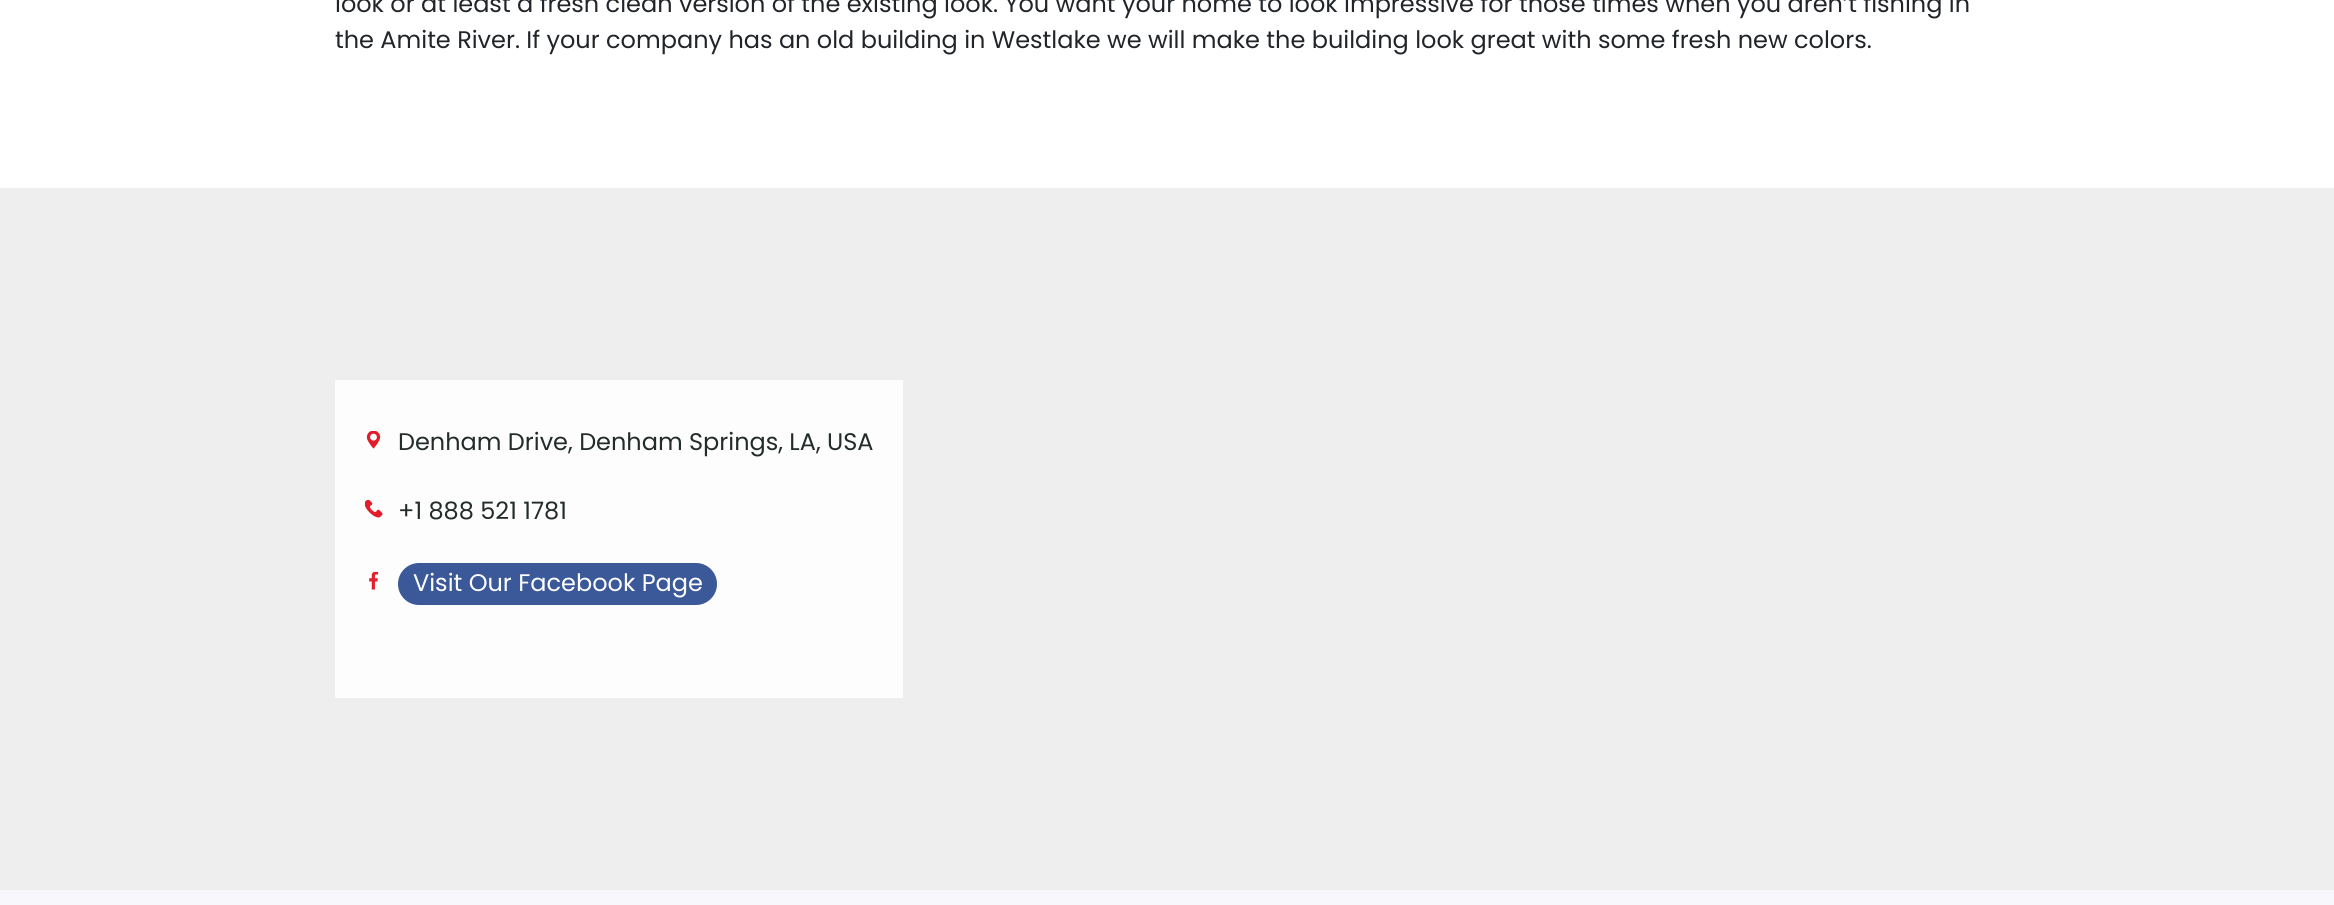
import math
import cairo


def round_path(ctx, x, y, w, h, r):
	ctx.new_sub_path()
	for i, (u, v) in enumerate([(x + w - r, y + h - r), (x + r, y + h - r), (x + r, y + r), (x + w - r, y + r)]):
		ctx.arc(u, v, r, i * math.pi / 2, (i + 1) * math.pi / 2)
	ctx.close_path()

def paste(ctx, path, x, y, w, h):
	ctx.save()
	ctx.set_source_surface(cairo.ImageSurface.create_from_png(path), x, y)
	ctx.rectangle(x, y, w, h)
	ctx.fill()
	ctx.restore()

def draw(ctx):
	ctx.set_source_rgb(1, 1, 1)
	ctx.paint()
	ctx.select_font_face('Poppins')
	ctx.set_font_size(24)
	ctx.set_source_rgb(0.129, 0.145, 0.161)
	ctx.move_to(335, 12)
	ctx.show_text('look or at least a fresh clean version of the existing look. You want your home to look impressive for those times when you aren’t fishing in')
	ctx.move_to(335, 48)
	ctx.show_text('the Amite River. If your company has an old building in Westlake we will make the building look great with some fresh new colors.')
	ctx.set_source_rgb(0.933, 0.933, 0.933)
	ctx.rectangle(0, 188, 2334, 702)
	ctx.fill()
	ctx.set_source_rgb(0.992, 0.992, 0.992)
	ctx.rectangle(335, 380, 568, 318)
	ctx.fill()
	paste(ctx, 'media/1.png', 366, 431, 15, 18)
	ctx.set_source_rgb(0.137, 0.173, 0.169)
	ctx.move_to(398, 450)
	ctx.show_text('Denham Drive, Denham Springs, LA, USA')
	paste(ctx, 'media/2.png', 365, 500, 18, 18)
	ctx.move_to(398, 519)
	ctx.show_text('+1 888 521 1781')
	paste(ctx, 'media/3.png', 369, 572, 10, 18)
	ctx.set_source_rgb(0.231, 0.349, 0.596)
	round_path(ctx, 398, 563, 319, 42, 21)
	ctx.fill()
	ctx.set_source_rgb(1, 1, 1)
	ctx.move_to(413, 591)
	ctx.show_text('Visit Our Facebook Page')
	ctx.set_source_rgb(0.969, 0.965, 0.984)
	ctx.rectangle(0, 890, 2334, 15)
	ctx.fill()


surface = cairo.ImageSurface(cairo.FORMAT_RGB24, 2334, 905)
ctx = cairo.Context(surface)
options = cairo.FontOptions()
options.set_hint_metrics(cairo.HINT_METRICS_OFF)
options.set_hint_style(cairo.HINT_STYLE_NONE)
ctx.set_font_options(options)
ctx.set_miter_limit(4)
draw(ctx)
surface.write_to_png('image.png')
